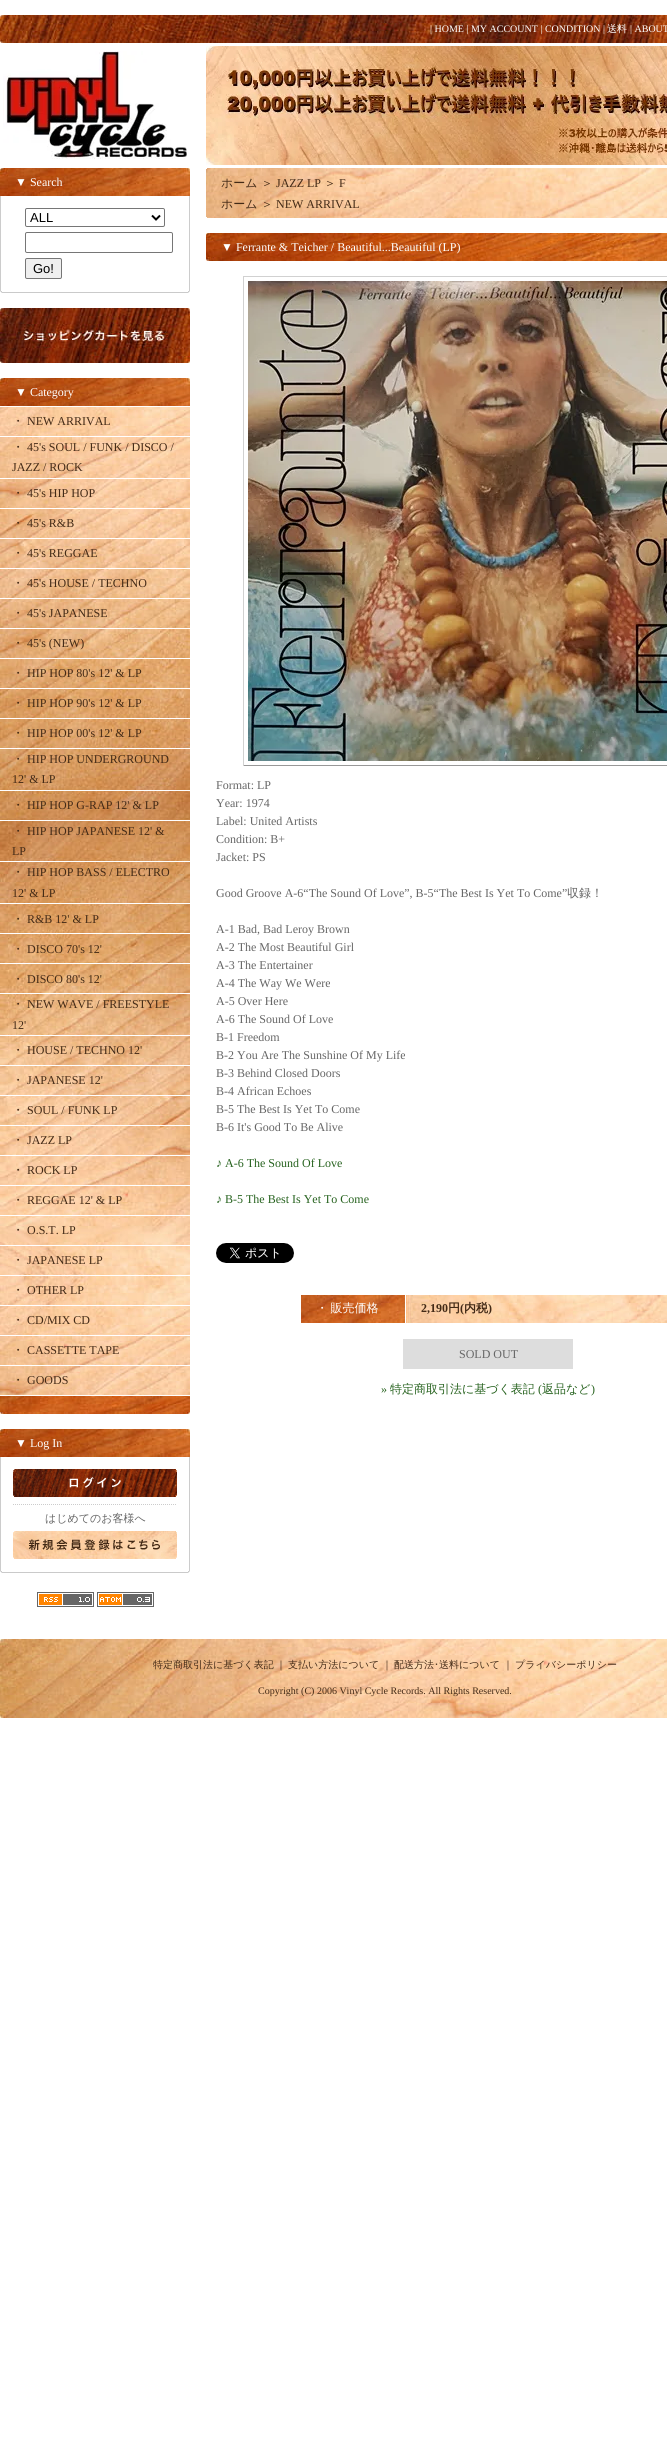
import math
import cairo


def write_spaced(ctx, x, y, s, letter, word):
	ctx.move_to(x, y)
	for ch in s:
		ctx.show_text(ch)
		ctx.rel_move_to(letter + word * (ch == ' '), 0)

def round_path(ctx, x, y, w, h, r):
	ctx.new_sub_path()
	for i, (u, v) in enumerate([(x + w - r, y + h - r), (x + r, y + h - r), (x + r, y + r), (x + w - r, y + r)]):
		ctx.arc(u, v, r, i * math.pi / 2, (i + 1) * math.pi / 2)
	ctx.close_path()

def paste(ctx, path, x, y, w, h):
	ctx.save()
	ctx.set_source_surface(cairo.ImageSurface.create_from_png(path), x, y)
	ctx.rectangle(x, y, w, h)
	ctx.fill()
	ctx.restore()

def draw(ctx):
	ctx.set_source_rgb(1, 1, 1)
	ctx.paint()
	paste(ctx, 'media/1.png', 0, 15, 667, 28)
	ctx.select_font_face('Liberation Serif')
	ctx.set_font_size(10)
	ctx.set_source_rgb(1, 1, 1)
	ctx.move_to(430, 32)
	ctx.show_text('| HOME | MY ACCOUNT | CONDITION |')
	ctx.select_font_face('WenQuanYi Zen Hei Medium')
	ctx.move_to(607, 32)
	ctx.show_text('送料')
	ctx.select_font_face('Liberation Serif')
	ctx.move_to(630, 32)
	ctx.show_text('| ABOUT')
	paste(ctx, 'media/2.png', 3, 51, 184, 108)
	paste(ctx, 'media/3.png', 206, 46, 461, 119)
	paste(ctx, 'media/4.png', 0, 168, 190, 28)
	ctx.set_font_size(12)
	ctx.move_to(15, 186)
	ctx.show_text('▼ Search')
	ctx.set_source_rgb(0.8, 0.8, 0.8)
	ctx.rectangle(189, 196, 1, 95)
	ctx.fill()
	ctx.rectangle(0, 196, 1, 95)
	ctx.fill()
	round_path(ctx, 25.5, 208.5, 139, 18, 1.5)
	ctx.set_source_rgb(0.463, 0.463, 0.463)
	ctx.set_line_width(1)
	ctx.stroke()
	ctx.new_path()
	ctx.move_to(152, 215.5)
	ctx.line_to(156, 219.5)
	ctx.line_to(160, 215.5)
	ctx.set_source_rgb(0, 0, 0)
	ctx.set_line_width(2)
	ctx.stroke()
	ctx.select_font_face('Liberation Sans')
	ctx.set_font_size(13)
	ctx.move_to(30, 222)
	ctx.show_text('ALL')
	round_path(ctx, 25.5, 232.5, 147, 20, 1.5)
	ctx.set_source_rgb(0.463, 0.463, 0.463)
	ctx.set_line_width(1)
	ctx.stroke()
	ctx.set_source_rgb(0.937, 0.937, 0.937)
	round_path(ctx, 25.5, 258.5, 36, 20, 1.5)
	ctx.fill_preserve()
	ctx.set_source_rgb(0.463, 0.463, 0.463)
	ctx.stroke()
	ctx.set_source_rgb(0, 0, 0)
	ctx.move_to(33, 273)
	ctx.show_text('Go!')
	paste(ctx, 'media/5.png', 0, 291, 190, 2)
	paste(ctx, 'media/6.png', 0, 308, 190, 55)
	paste(ctx, 'media/7.png', 0, 407, 190, 988)
	paste(ctx, 'media/4.png', 0, 378, 190, 28)
	ctx.select_font_face('Liberation Serif')
	ctx.set_font_size(12)
	ctx.set_source_rgb(1, 1, 1)
	ctx.move_to(15, 396)
	ctx.show_text('▼ Category')
	ctx.rectangle(0, 436, 190, 1)
	ctx.fill()
	ctx.select_font_face('WenQuanYi Zen Hei Medium')
	ctx.set_source_rgb(0.263, 0.165, 0.086)
	ctx.move_to(12, 425)
	ctx.show_text('・')
	ctx.select_font_face('Liberation Serif')
	ctx.move_to(27, 425)
	ctx.show_text('NEW ARRIVAL')
	ctx.set_source_rgb(1, 1, 1)
	ctx.rectangle(0, 478, 190, 1)
	ctx.fill()
	ctx.select_font_face('WenQuanYi Zen Hei Medium')
	ctx.set_source_rgb(0.263, 0.165, 0.086)
	ctx.move_to(12, 451)
	ctx.show_text('・')
	ctx.select_font_face('Liberation Serif')
	ctx.move_to(27, 451)
	ctx.show_text('45\'s SOUL / FUNK / DISCO /')
	ctx.move_to(12, 471)
	ctx.show_text('JAZZ / ROCK')
	ctx.set_source_rgb(1, 1, 1)
	ctx.rectangle(0, 508, 190, 1)
	ctx.fill()
	ctx.select_font_face('WenQuanYi Zen Hei Medium')
	ctx.set_source_rgb(0.263, 0.165, 0.086)
	ctx.move_to(12, 497)
	ctx.show_text('・')
	ctx.select_font_face('Liberation Serif')
	ctx.move_to(27, 497)
	ctx.show_text('45\'s HIP HOP')
	ctx.set_source_rgb(1, 1, 1)
	ctx.rectangle(0, 538, 190, 1)
	ctx.fill()
	ctx.select_font_face('WenQuanYi Zen Hei Medium')
	ctx.set_source_rgb(0.263, 0.165, 0.086)
	ctx.move_to(12, 527)
	ctx.show_text('・')
	ctx.select_font_face('Liberation Serif')
	ctx.move_to(27, 527)
	ctx.show_text('45\'s R&B')
	ctx.set_source_rgb(1, 1, 1)
	ctx.rectangle(0, 568, 190, 1)
	ctx.fill()
	ctx.select_font_face('WenQuanYi Zen Hei Medium')
	ctx.set_source_rgb(0.263, 0.165, 0.086)
	ctx.move_to(12, 557)
	ctx.show_text('・')
	ctx.select_font_face('Liberation Serif')
	ctx.move_to(27, 557)
	ctx.show_text('45\'s REGGAE')
	ctx.set_source_rgb(1, 1, 1)
	ctx.rectangle(0, 598, 190, 1)
	ctx.fill()
	ctx.select_font_face('WenQuanYi Zen Hei Medium')
	ctx.set_source_rgb(0.263, 0.165, 0.086)
	ctx.move_to(12, 587)
	ctx.show_text('・')
	ctx.select_font_face('Liberation Serif')
	ctx.move_to(27, 587)
	ctx.show_text('45\'s HOUSE / TECHNO')
	ctx.set_source_rgb(1, 1, 1)
	ctx.rectangle(0, 628, 190, 1)
	ctx.fill()
	ctx.select_font_face('WenQuanYi Zen Hei Medium')
	ctx.set_source_rgb(0.263, 0.165, 0.086)
	ctx.move_to(12, 617)
	ctx.show_text('・')
	ctx.select_font_face('Liberation Serif')
	ctx.move_to(27, 617)
	ctx.show_text('45\'s JAPANESE')
	ctx.set_source_rgb(1, 1, 1)
	ctx.rectangle(0, 658, 190, 1)
	ctx.fill()
	ctx.select_font_face('WenQuanYi Zen Hei Medium')
	ctx.set_source_rgb(0.263, 0.165, 0.086)
	ctx.move_to(12, 647)
	ctx.show_text('・')
	ctx.select_font_face('Liberation Serif')
	ctx.move_to(27, 647)
	ctx.show_text('45\'s (NEW)')
	ctx.set_source_rgb(1, 1, 1)
	ctx.rectangle(0, 688, 190, 1)
	ctx.fill()
	ctx.select_font_face('WenQuanYi Zen Hei Medium')
	ctx.set_source_rgb(0.263, 0.165, 0.086)
	ctx.move_to(12, 677)
	ctx.show_text('・')
	ctx.select_font_face('Liberation Serif')
	ctx.move_to(27, 677)
	ctx.show_text('HIP HOP 80\'s 12\' & LP')
	ctx.set_source_rgb(1, 1, 1)
	ctx.rectangle(0, 718, 190, 1)
	ctx.fill()
	ctx.select_font_face('WenQuanYi Zen Hei Medium')
	ctx.set_source_rgb(0.263, 0.165, 0.086)
	ctx.move_to(12, 707)
	ctx.show_text('・')
	ctx.select_font_face('Liberation Serif')
	ctx.move_to(27, 707)
	ctx.show_text('HIP HOP 90\'s 12\' & LP')
	ctx.set_source_rgb(1, 1, 1)
	ctx.rectangle(0, 748, 190, 1)
	ctx.fill()
	ctx.select_font_face('WenQuanYi Zen Hei Medium')
	ctx.set_source_rgb(0.263, 0.165, 0.086)
	ctx.move_to(12, 737)
	ctx.show_text('・')
	ctx.select_font_face('Liberation Serif')
	ctx.move_to(27, 737)
	ctx.show_text('HIP HOP 00\'s 12\' & LP')
	ctx.set_source_rgb(1, 1, 1)
	ctx.rectangle(0, 790, 190, 1)
	ctx.fill()
	ctx.select_font_face('WenQuanYi Zen Hei Medium')
	ctx.set_source_rgb(0.263, 0.165, 0.086)
	ctx.move_to(12, 763)
	ctx.show_text('・')
	ctx.select_font_face('Liberation Serif')
	ctx.move_to(27, 763)
	ctx.show_text('HIP HOP UNDERGROUND')
	ctx.move_to(12, 783)
	ctx.show_text('12\' & LP')
	ctx.set_source_rgb(1, 1, 1)
	ctx.rectangle(0, 820, 190, 1)
	ctx.fill()
	ctx.select_font_face('WenQuanYi Zen Hei Medium')
	ctx.set_source_rgb(0.263, 0.165, 0.086)
	ctx.move_to(12, 809)
	ctx.show_text('・')
	ctx.select_font_face('Liberation Serif')
	ctx.move_to(27, 809)
	ctx.show_text('HIP HOP G-RAP 12\' & LP')
	ctx.set_source_rgb(1, 1, 1)
	ctx.rectangle(0, 861, 190, 1)
	ctx.fill()
	ctx.select_font_face('WenQuanYi Zen Hei Medium')
	ctx.set_source_rgb(0.263, 0.165, 0.086)
	ctx.move_to(12, 835)
	ctx.show_text('・')
	ctx.select_font_face('Liberation Serif')
	ctx.move_to(27, 835)
	ctx.show_text('HIP HOP JAPANESE 12\' &')
	ctx.move_to(12, 855)
	ctx.show_text('LP')
	ctx.set_source_rgb(1, 1, 1)
	ctx.rectangle(0, 903, 190, 1)
	ctx.fill()
	ctx.select_font_face('WenQuanYi Zen Hei Medium')
	ctx.set_source_rgb(0.263, 0.165, 0.086)
	ctx.move_to(12, 876)
	ctx.show_text('・')
	ctx.select_font_face('Liberation Serif')
	ctx.move_to(27, 876)
	ctx.show_text('HIP HOP BASS / ELECTRO')
	ctx.move_to(12, 897)
	ctx.show_text('12\' & LP')
	ctx.set_source_rgb(1, 1, 1)
	ctx.rectangle(0, 933, 190, 1)
	ctx.fill()
	ctx.select_font_face('WenQuanYi Zen Hei Medium')
	ctx.set_source_rgb(0.263, 0.165, 0.086)
	ctx.move_to(12, 923)
	ctx.show_text('・')
	ctx.select_font_face('Liberation Serif')
	ctx.move_to(27, 923)
	ctx.show_text('R&B 12\' & LP')
	ctx.set_source_rgb(1, 1, 1)
	ctx.rectangle(0, 963, 190, 1)
	ctx.fill()
	ctx.select_font_face('WenQuanYi Zen Hei Medium')
	ctx.set_source_rgb(0.263, 0.165, 0.086)
	ctx.move_to(12, 953)
	ctx.show_text('・')
	ctx.select_font_face('Liberation Serif')
	ctx.move_to(27, 953)
	ctx.show_text('DISCO 70\'s 12\'')
	ctx.set_source_rgb(1, 1, 1)
	ctx.rectangle(0, 993, 190, 1)
	ctx.fill()
	ctx.select_font_face('WenQuanYi Zen Hei Medium')
	ctx.set_source_rgb(0.263, 0.165, 0.086)
	ctx.move_to(12, 983)
	ctx.show_text('・')
	ctx.select_font_face('Liberation Serif')
	ctx.move_to(27, 983)
	ctx.show_text('DISCO 80\'s 12\'')
	ctx.set_source_rgb(1, 1, 1)
	ctx.rectangle(0, 1035, 190, 1)
	ctx.fill()
	ctx.select_font_face('WenQuanYi Zen Hei Medium')
	ctx.set_source_rgb(0.263, 0.165, 0.086)
	ctx.move_to(12, 1008)
	ctx.show_text('・')
	ctx.select_font_face('Liberation Serif')
	ctx.move_to(27, 1008)
	ctx.show_text('NEW WAVE / FREESTYLE')
	ctx.move_to(12, 1029)
	ctx.show_text('12\'')
	ctx.set_source_rgb(1, 1, 1)
	ctx.rectangle(0, 1065, 190, 1)
	ctx.fill()
	ctx.select_font_face('WenQuanYi Zen Hei Medium')
	ctx.set_source_rgb(0.263, 0.165, 0.086)
	ctx.move_to(12, 1054)
	ctx.show_text('・')
	ctx.select_font_face('Liberation Serif')
	ctx.move_to(27, 1054)
	ctx.show_text('HOUSE / TECHNO 12\'')
	ctx.set_source_rgb(1, 1, 1)
	ctx.rectangle(0, 1095, 190, 1)
	ctx.fill()
	ctx.select_font_face('WenQuanYi Zen Hei Medium')
	ctx.set_source_rgb(0.263, 0.165, 0.086)
	ctx.move_to(12, 1084)
	ctx.show_text('・')
	ctx.select_font_face('Liberation Serif')
	ctx.move_to(27, 1084)
	ctx.show_text('JAPANESE 12\'')
	ctx.set_source_rgb(1, 1, 1)
	ctx.rectangle(0, 1125, 190, 1)
	ctx.fill()
	ctx.select_font_face('WenQuanYi Zen Hei Medium')
	ctx.set_source_rgb(0.263, 0.165, 0.086)
	ctx.move_to(12, 1114)
	ctx.show_text('・')
	ctx.select_font_face('Liberation Serif')
	ctx.move_to(27, 1114)
	ctx.show_text('SOUL / FUNK LP')
	ctx.set_source_rgb(1, 1, 1)
	ctx.rectangle(0, 1155, 190, 1)
	ctx.fill()
	ctx.select_font_face('WenQuanYi Zen Hei Medium')
	ctx.set_source_rgb(0.263, 0.165, 0.086)
	ctx.move_to(12, 1144)
	ctx.show_text('・')
	ctx.select_font_face('Liberation Serif')
	ctx.move_to(27, 1144)
	ctx.show_text('JAZZ LP')
	ctx.set_source_rgb(1, 1, 1)
	ctx.rectangle(0, 1185, 190, 1)
	ctx.fill()
	ctx.select_font_face('WenQuanYi Zen Hei Medium')
	ctx.set_source_rgb(0.263, 0.165, 0.086)
	ctx.move_to(12, 1174)
	ctx.show_text('・')
	ctx.select_font_face('Liberation Serif')
	ctx.move_to(27, 1174)
	ctx.show_text('ROCK LP')
	ctx.set_source_rgb(1, 1, 1)
	ctx.rectangle(0, 1215, 190, 1)
	ctx.fill()
	ctx.select_font_face('WenQuanYi Zen Hei Medium')
	ctx.set_source_rgb(0.263, 0.165, 0.086)
	ctx.move_to(12, 1204)
	ctx.show_text('・')
	ctx.select_font_face('Liberation Serif')
	ctx.move_to(27, 1204)
	ctx.show_text('REGGAE 12\' & LP')
	ctx.set_source_rgb(1, 1, 1)
	ctx.rectangle(0, 1245, 190, 1)
	ctx.fill()
	ctx.select_font_face('WenQuanYi Zen Hei Medium')
	ctx.set_source_rgb(0.263, 0.165, 0.086)
	ctx.move_to(12, 1234)
	ctx.show_text('・')
	ctx.select_font_face('Liberation Serif')
	ctx.move_to(27, 1234)
	ctx.show_text('O.S.T. LP')
	ctx.set_source_rgb(1, 1, 1)
	ctx.rectangle(0, 1275, 190, 1)
	ctx.fill()
	ctx.select_font_face('WenQuanYi Zen Hei Medium')
	ctx.set_source_rgb(0.263, 0.165, 0.086)
	ctx.move_to(12, 1264)
	ctx.show_text('・')
	ctx.select_font_face('Liberation Serif')
	ctx.move_to(27, 1264)
	ctx.show_text('JAPANESE LP')
	ctx.set_source_rgb(1, 1, 1)
	ctx.rectangle(0, 1305, 190, 1)
	ctx.fill()
	ctx.select_font_face('WenQuanYi Zen Hei Medium')
	ctx.set_source_rgb(0.263, 0.165, 0.086)
	ctx.move_to(12, 1294)
	ctx.show_text('・')
	ctx.select_font_face('Liberation Serif')
	ctx.move_to(27, 1294)
	ctx.show_text('OTHER LP')
	ctx.set_source_rgb(1, 1, 1)
	ctx.rectangle(0, 1335, 190, 1)
	ctx.fill()
	ctx.select_font_face('WenQuanYi Zen Hei Medium')
	ctx.set_source_rgb(0.263, 0.165, 0.086)
	ctx.move_to(12, 1324)
	ctx.show_text('・')
	ctx.select_font_face('Liberation Serif')
	ctx.move_to(27, 1324)
	ctx.show_text('CD/MIX CD')
	ctx.set_source_rgb(1, 1, 1)
	ctx.rectangle(0, 1365, 190, 1)
	ctx.fill()
	ctx.select_font_face('WenQuanYi Zen Hei Medium')
	ctx.set_source_rgb(0.263, 0.165, 0.086)
	ctx.move_to(12, 1354)
	ctx.show_text('・')
	ctx.select_font_face('Liberation Serif')
	ctx.move_to(27, 1354)
	ctx.show_text('CASSETTE TAPE')
	ctx.select_font_face('WenQuanYi Zen Hei Medium')
	ctx.move_to(12, 1384)
	ctx.show_text('・')
	ctx.select_font_face('Liberation Serif')
	ctx.move_to(27, 1384)
	ctx.show_text('GOODS')
	paste(ctx, 'media/8.png', 0, 1396, 190, 18)
	paste(ctx, 'media/4.png', 0, 1429, 190, 28)
	ctx.set_source_rgb(1, 1, 1)
	ctx.move_to(15, 1447)
	ctx.show_text('▼ Log In')
	ctx.set_source_rgb(0.8, 0.8, 0.8)
	ctx.rectangle(189, 1457, 1, 114)
	ctx.fill()
	ctx.rectangle(0, 1457, 1, 114)
	ctx.fill()
	paste(ctx, 'media/9.png', 13, 1469, 164, 28)
	ctx.new_path()
	ctx.move_to(13, 1504.5)
	ctx.line_to(177, 1504.5)
	ctx.set_dash([1, 1])
	ctx.stroke()
	ctx.select_font_face('WenQuanYi Zen Hei Medium')
	ctx.set_font_size(11)
	ctx.set_source_rgb(0.4, 0.4, 0.4)
	ctx.move_to(45, 1522)
	ctx.show_text('はじめてのお客様へ')
	paste(ctx, 'media/10.png', 13, 1531, 164, 28)
	paste(ctx, 'media/5.png', 0, 1571, 190, 2)
	paste(ctx, 'media/11.png', 37, 1592, 57, 15)
	paste(ctx, 'media/12.png', 97, 1592, 57, 15)
	paste(ctx, 'media/13.png', 206, 168, 461, 50)
	ctx.set_source_rgb(1, 1, 1)
	ctx.rectangle(206, 168, 1, 1)
	ctx.fill()
	ctx.set_font_size(12)
	ctx.set_source_rgb(0.263, 0.165, 0.086)
	ctx.move_to(221, 187)
	ctx.show_text('ホーム')
	ctx.move_to(261, 187)
	ctx.show_text('＞')
	ctx.select_font_face('Liberation Serif')
	ctx.move_to(276, 187)
	ctx.show_text('JAZZ LP')
	ctx.select_font_face('WenQuanYi Zen Hei Medium')
	ctx.move_to(324, 187)
	ctx.show_text('＞')
	ctx.select_font_face('Liberation Serif')
	ctx.move_to(339, 187)
	ctx.show_text('F')
	ctx.select_font_face('WenQuanYi Zen Hei Medium')
	ctx.move_to(221, 208)
	ctx.show_text('ホーム')
	ctx.move_to(261, 208)
	ctx.show_text('＞')
	ctx.select_font_face('Liberation Serif')
	ctx.move_to(276, 208)
	ctx.show_text('NEW ARRIVAL')
	ctx.set_source_rgb(1, 1, 1)
	ctx.rectangle(206, 217, 1, 1)
	ctx.fill()
	paste(ctx, 'media/14.png', 206, 233, 461, 28)
	ctx.move_to(221, 251)
	ctx.show_text('▼ Ferrante & Teicher / Beautiful...Beautiful (LP)')
	ctx.set_source_rgb(0.82, 0.82, 0.82)
	ctx.rectangle(243, 276, 424, 1)
	ctx.fill()
	ctx.set_source_rgb(0.596, 0.596, 0.596)
	ctx.rectangle(243, 765, 424, 1)
	ctx.fill()
	ctx.set_source_rgb(0.82, 0.82, 0.82)
	ctx.rectangle(243, 276, 1, 490)
	ctx.fill()
	paste(ctx, 'media/15.png', 248, 281, 419, 480)
	ctx.set_source_rgb(0.4, 0.4, 0.4)
	for x, y, s in [
		(216, 789, 'Format: LP'),
		(216, 807, 'Year: 1974'),
		(216, 825, 'Label: United Artists'),
		(216, 843, 'Condition: B+'),
		(216, 861, 'Jacket: PS'),
		(216, 897, 'Good Groove A-6“The Sound Of Love”, B-5“The Best Is Yet To Come”'),
	]:
		ctx.move_to(x, y)
		ctx.show_text(s)
	ctx.select_font_face('WenQuanYi Zen Hei Medium')
	ctx.move_to(567, 897)
	ctx.show_text('収録！')
	ctx.select_font_face('Liberation Serif')
	for x, y, s in [
		(216, 933, 'A-1 Bad, Bad Leroy Brown'),
		(216, 951, 'A-2 The Most Beautiful Girl'),
		(216, 969, 'A-3 The Entertainer'),
		(216, 987, 'A-4 The Way We Were'),
		(216, 1005, 'A-5 Over Here'),
		(216, 1023, 'A-6 The Sound Of Love'),
		(216, 1041, 'B-1 Freedom'),
		(216, 1059, 'B-2 You Are The Sunshine Of My Life'),
		(216, 1077, 'B-3 Behind Closed Doors'),
		(216, 1095, 'B-4 African Echoes'),
		(216, 1113, 'B-5 The Best Is Yet To Come'),
		(216, 1131, 'B-6 It\'s Good To Be Alive'),
	]:
		ctx.move_to(x, y)
		ctx.show_text(s)
	ctx.set_source_rgb(0.149, 0.384, 0.118)
	ctx.move_to(216, 1167)
	ctx.show_text('♪ A-6 The Sound Of Love')
	ctx.move_to(216, 1203)
	ctx.show_text('♪ B-5 The Best Is Yet To Come')
	paste(ctx, 'media/16.png', 216, 1243, 78, 20)
	paste(ctx, 'media/17.png', 301, 1295, 366, 28)
	ctx.set_source_rgb(1, 1, 1)
	ctx.rectangle(405, 1295, 1, 29)
	ctx.fill()
	ctx.select_font_face('WenQuanYi Zen Hei Medium')
	write_spaced(ctx, 316, 1312, '・ 販売価格', 0, -1)
	ctx.select_font_face('Liberation Serif', cairo.FONT_SLANT_NORMAL, cairo.FONT_WEIGHT_BOLD)
	ctx.set_source_rgb(0.263, 0.165, 0.086)
	ctx.move_to(421, 1312)
	ctx.show_text('2,190')
	ctx.select_font_face('WenQuanYi Zen Hei', cairo.FONT_SLANT_NORMAL, cairo.FONT_WEIGHT_BOLD)
	ctx.move_to(448, 1312)
	ctx.show_text('円')
	ctx.select_font_face('Liberation Serif', cairo.FONT_SLANT_NORMAL, cairo.FONT_WEIGHT_BOLD)
	ctx.move_to(460, 1312)
	ctx.show_text('(')
	ctx.select_font_face('WenQuanYi Zen Hei', cairo.FONT_SLANT_NORMAL, cairo.FONT_WEIGHT_BOLD)
	ctx.move_to(464, 1312)
	ctx.show_text('内税')
	ctx.select_font_face('Liberation Serif', cairo.FONT_SLANT_NORMAL, cairo.FONT_WEIGHT_BOLD)
	ctx.move_to(488, 1312)
	ctx.show_text(')')
	ctx.set_source_rgb(0.867, 0.867, 0.867)
	ctx.rectangle(403, 1339, 170, 30)
	ctx.fill()
	ctx.select_font_face('Liberation Serif')
	ctx.set_source_rgb(0.4, 0.4, 0.4)
	ctx.move_to(459, 1358)
	ctx.show_text('SOLD OUT')
	ctx.set_source_rgb(0.149, 0.384, 0.118)
	ctx.move_to(381, 1393)
	ctx.show_text('»')
	ctx.select_font_face('WenQuanYi Zen Hei Medium')
	ctx.move_to(390, 1393)
	ctx.show_text('特定商取引法に基づく表記')
	ctx.select_font_face('Liberation Serif')
	ctx.move_to(538, 1393)
	ctx.show_text('(')
	ctx.select_font_face('WenQuanYi Zen Hei Medium')
	ctx.move_to(542, 1393)
	ctx.show_text('返品など')
	ctx.select_font_face('Liberation Serif')
	ctx.move_to(591, 1393)
	ctx.show_text(')')
	paste(ctx, 'media/18.png', 0, 1639, 667, 79)
	ctx.select_font_face('WenQuanYi Zen Hei Medium')
	ctx.set_font_size(10)
	ctx.set_source_rgb(0.263, 0.165, 0.086)
	for x, y, s in [
		(153, 1668, '特定商取引法に基づく表記'),
		(276, 1668, '｜'),
		(288, 1668, '支払い方法について'),
		(382, 1668, '｜'),
		(394, 1668, '配送方法'),
	]:
		ctx.move_to(x, y)
		ctx.show_text(s)
	ctx.select_font_face('IPAPGothic')
	ctx.move_to(434, 1668)
	ctx.show_text('･')
	ctx.select_font_face('WenQuanYi Zen Hei Medium')
	for x, y, s in [
		(439, 1668, '送料について'),
		(503, 1668, '｜'),
		(515, 1668, 'プライバシーポリシー'),
	]:
		ctx.move_to(x, y)
		ctx.show_text(s)
	ctx.select_font_face('Liberation Serif')
	ctx.move_to(258, 1694)
	ctx.show_text('Copyright (C) 2006 Vinyl Cycle Records. All Rights Reserved.')


surface = cairo.ImageSurface(cairo.FORMAT_RGB24, 667, 2463)
ctx = cairo.Context(surface)
options = cairo.FontOptions()
options.set_hint_metrics(cairo.HINT_METRICS_OFF)
options.set_hint_style(cairo.HINT_STYLE_NONE)
ctx.set_font_options(options)
ctx.set_miter_limit(4)
draw(ctx)
surface.write_to_png('image.png')
